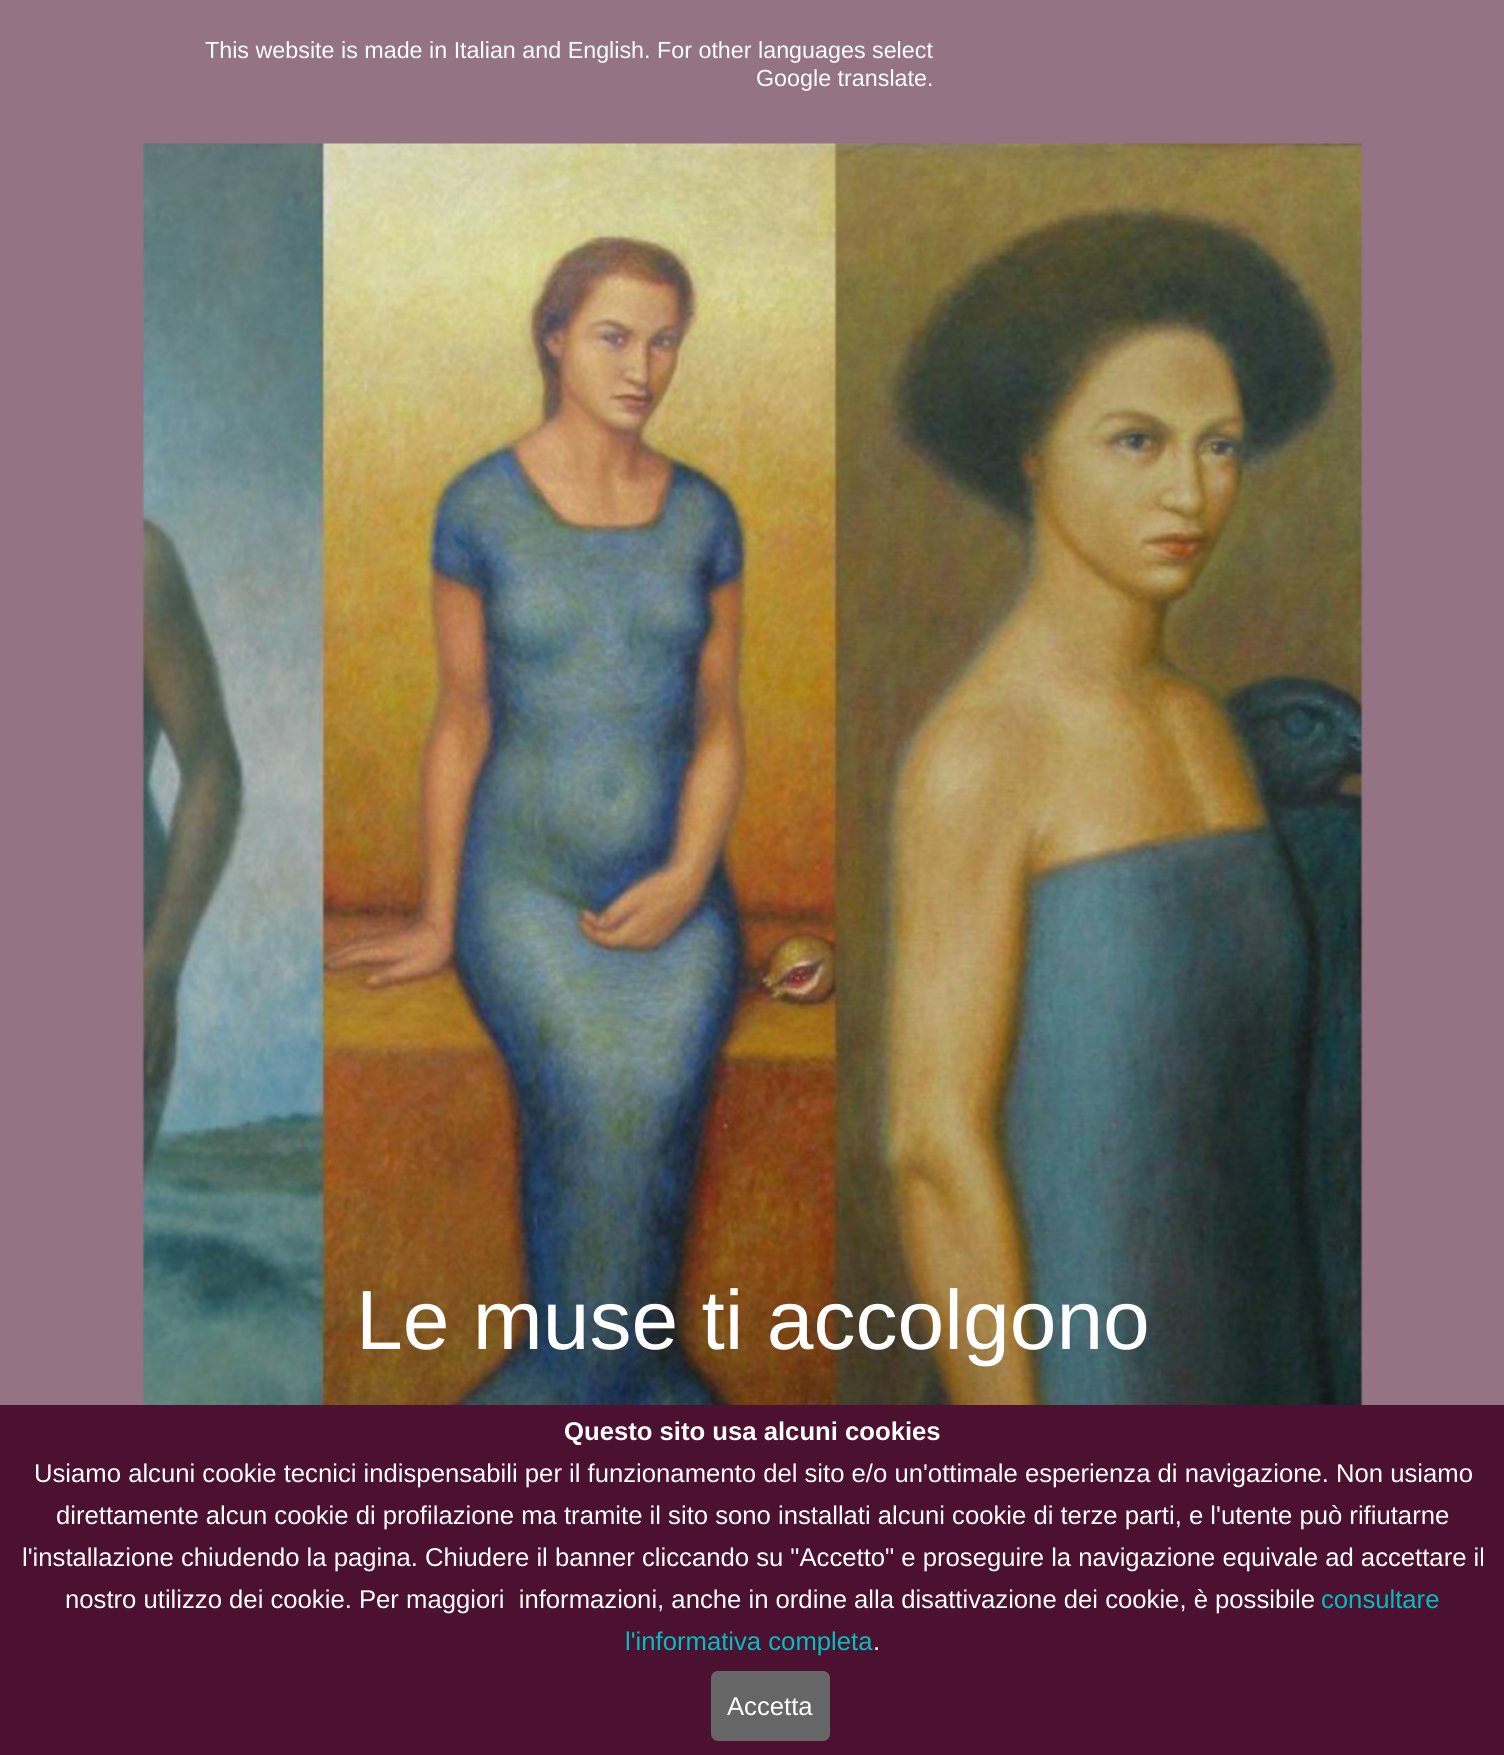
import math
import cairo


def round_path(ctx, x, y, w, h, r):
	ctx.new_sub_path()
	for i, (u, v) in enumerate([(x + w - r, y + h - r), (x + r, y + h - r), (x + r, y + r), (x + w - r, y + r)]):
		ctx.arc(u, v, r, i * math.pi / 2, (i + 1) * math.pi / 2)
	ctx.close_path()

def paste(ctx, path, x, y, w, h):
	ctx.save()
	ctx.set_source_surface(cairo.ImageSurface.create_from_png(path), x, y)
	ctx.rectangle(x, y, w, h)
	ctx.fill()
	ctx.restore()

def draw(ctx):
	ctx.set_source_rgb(0.58, 0.451, 0.522)
	ctx.paint()
	ctx.select_font_face('Liberation Sans')
	ctx.set_font_size(23.3)
	ctx.set_source_rgb(1, 1, 1)
	ctx.move_to(205, 58)
	ctx.show_text('This website is made in Italian and English. For other languages select')
	ctx.move_to(756, 86)
	ctx.show_text('Google translate.')
	paste(ctx, 'media/1.png', 142, 143, 1221, 1262)
	ctx.set_font_size(84)
	ctx.move_to(356, 1349)
	ctx.show_text('Le muse ti accolgono')
	ctx.set_source_rgb(0.298, 0.067, 0.188)
	ctx.rectangle(0, 1405, 1504, 350)
	ctx.fill()
	ctx.select_font_face('Liberation Sans', cairo.FONT_SLANT_NORMAL, cairo.FONT_WEIGHT_BOLD)
	ctx.set_font_size(25.67)
	ctx.set_source_rgb(1, 1, 1)
	ctx.move_to(564, 1440)
	ctx.show_text('Questo sito usa alcuni cookies')
	ctx.select_font_face('Liberation Sans')
	for x, y, s in [
		(34, 1482, 'Usiamo alcuni cookie tecnici indispensabili per il funzionamento del sito e/o un\'ottimale esperienza di navigazione. Non usiamo'),
		(56, 1524, 'direttamente alcun cookie di profilazione ma tramite il sito sono installati alcuni cookie di terze parti, e l\'utente può rifiutarne'),
		(22, 1566, 'l\'installazione chiudendo la pagina. Chiudere il banner cliccando su "Accetto" e proseguire la navigazione equivale ad accettare il'),
		(65, 1608, 'nostro utilizzo dei cookie. Per maggiori  informazioni, anche in ordine alla disattivazione dei cookie, è possibile'),
	]:
		ctx.move_to(x, y)
		ctx.show_text(s)
	ctx.set_source_rgb(0, 0.749, 0.749)
	ctx.move_to(1321, 1608)
	ctx.show_text('consultare')
	ctx.move_to(625, 1650)
	ctx.show_text('l\'informativa completa')
	ctx.set_source_rgb(1, 1, 1)
	ctx.move_to(873, 1650)
	ctx.show_text('.')
	ctx.set_source_rgb(0.4, 0.4, 0.4)
	round_path(ctx, 711, 1671, 119, 70, 7)
	ctx.fill()
	ctx.set_source_rgb(1, 1, 1)
	ctx.move_to(727, 1715)
	ctx.show_text('Accetta')


surface = cairo.ImageSurface(cairo.FORMAT_RGB24, 1504, 1755)
ctx = cairo.Context(surface)
options = cairo.FontOptions()
options.set_hint_metrics(cairo.HINT_METRICS_OFF)
options.set_hint_style(cairo.HINT_STYLE_NONE)
ctx.set_font_options(options)
ctx.set_miter_limit(4)
draw(ctx)
surface.write_to_png('image.png')
